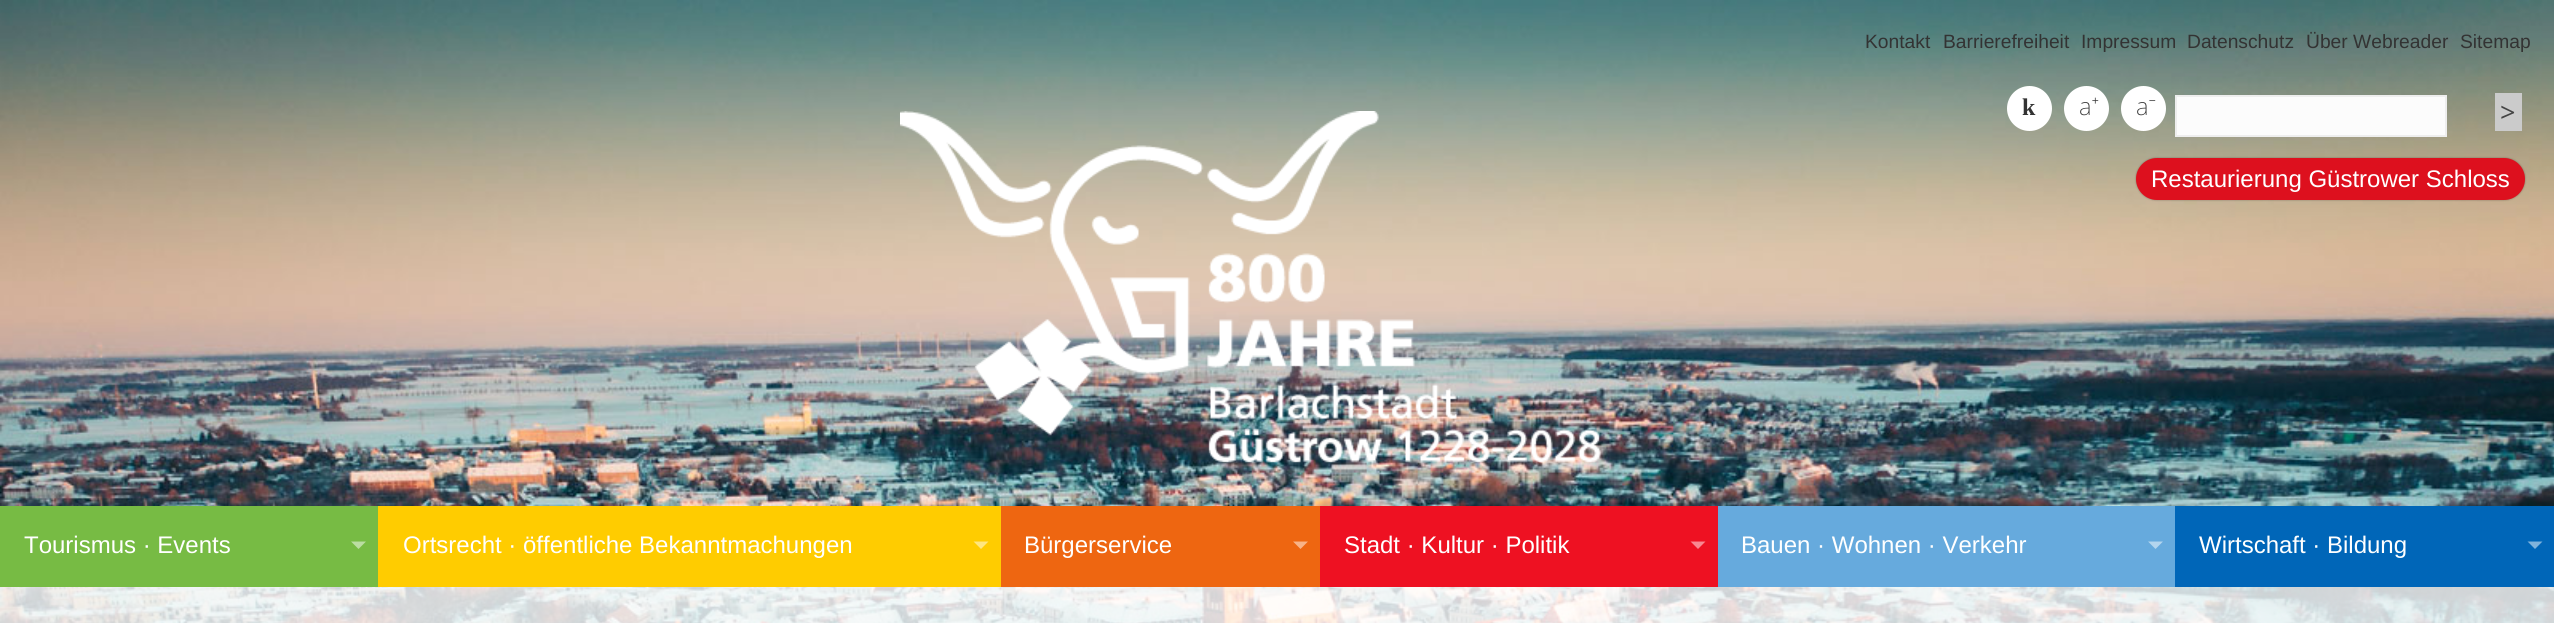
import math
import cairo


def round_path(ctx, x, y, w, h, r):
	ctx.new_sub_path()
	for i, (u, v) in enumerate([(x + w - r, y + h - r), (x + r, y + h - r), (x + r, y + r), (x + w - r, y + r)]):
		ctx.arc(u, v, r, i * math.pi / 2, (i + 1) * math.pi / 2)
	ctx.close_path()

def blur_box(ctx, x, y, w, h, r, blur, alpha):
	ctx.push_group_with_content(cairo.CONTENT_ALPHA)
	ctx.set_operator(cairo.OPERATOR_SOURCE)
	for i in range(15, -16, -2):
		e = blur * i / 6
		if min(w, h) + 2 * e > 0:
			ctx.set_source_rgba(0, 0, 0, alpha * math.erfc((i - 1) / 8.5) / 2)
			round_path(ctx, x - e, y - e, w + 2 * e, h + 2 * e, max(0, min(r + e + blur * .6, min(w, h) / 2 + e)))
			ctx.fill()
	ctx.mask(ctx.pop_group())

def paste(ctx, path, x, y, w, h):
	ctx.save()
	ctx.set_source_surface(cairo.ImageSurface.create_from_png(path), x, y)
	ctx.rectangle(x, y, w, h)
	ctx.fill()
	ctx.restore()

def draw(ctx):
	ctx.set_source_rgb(1, 1, 1)
	ctx.paint()
	paste(ctx, 'media/1.png', 0, 0, 2554, 623)
	ctx.select_font_face('Liberation Sans')
	ctx.set_font_size(19.25)
	ctx.set_source_rgb(0.2, 0.2, 0.2)
	for x, y, s in [
		(1865, 48, 'Kontakt'),
		(1943, 48, 'Barrierefreiheit'),
		(2081, 48, 'Impressum'),
		(2187, 48, 'Datenschutz'),
		(2306, 48, 'Über Webreader'),
		(2460, 48, 'Sitemap'),
	]:
		ctx.move_to(x, y)
		ctx.show_text(s)
	paste(ctx, 'media/2.png', 900, 111, 701, 352)
	ctx.set_source_rgb(1, 1, 1)
	ctx.arc(2029.5, 108.5, 22.5, 0, 2 * math.pi)
	ctx.fill()
	ctx.select_font_face('Liberation Serif', cairo.FONT_SLANT_NORMAL, cairo.FONT_WEIGHT_BOLD)
	ctx.set_font_size(24)
	ctx.set_source_rgb(0.2, 0.2, 0.2)
	ctx.move_to(2022, 115)
	ctx.show_text('k')
	ctx.set_source_rgb(1, 1, 1)
	ctx.new_path()
	ctx.arc(2086.5, 108.5, 22.5, 0, 2 * math.pi)
	ctx.fill()
	ctx.select_font_face('Noto Sans ExtraLight')
	ctx.set_source_rgb(0.2, 0.2, 0.2)
	ctx.move_to(2079, 115)
	ctx.show_text('a⁺')
	ctx.set_source_rgb(1, 1, 1)
	ctx.new_path()
	ctx.arc(2143.5, 108.5, 22.5, 0, 2 * math.pi)
	ctx.fill()
	ctx.set_source_rgb(0.2, 0.2, 0.2)
	ctx.move_to(2136, 115)
	ctx.show_text('a⁻')
	ctx.set_source_rgb(0.988, 0.988, 0.988)
	ctx.rectangle(2176, 96, 270, 40)
	ctx.fill_preserve()
	ctx.set_source_rgb(0.933, 0.933, 0.933)
	ctx.stroke()
	ctx.set_source_rgb(0.796, 0.796, 0.796)
	ctx.rectangle(2495, 93, 27, 38)
	ctx.fill()
	ctx.select_font_face('Open Sans')
	ctx.set_font_size(27)
	ctx.set_source_rgb(0.267, 0.267, 0.267)
	ctx.move_to(2500, 122)
	ctx.show_text('>')
	ctx.set_source_rgb(0, 0, 0)
	blur_box(ctx, 2136, 158, 389, 42, 21, 1, 0.3)
	ctx.set_source_rgb(0.867, 0.063, 0.118)
	round_path(ctx, 2136, 158, 389, 42, 21)
	ctx.fill()
	ctx.select_font_face('Liberation Sans')
	ctx.set_font_size(24)
	ctx.set_source_rgb(1, 1, 1)
	ctx.move_to(2151, 187)
	ctx.show_text('Restaurierung Güstrower Schloss')
	ctx.set_source_rgb(0.467, 0.733, 0.267)
	ctx.rectangle(0, 506, 378, 81)
	ctx.fill()
	ctx.set_source_rgb(1, 1, 1)
	ctx.move_to(24, 553)
	ctx.show_text('Tourismus · Events')
	ctx.set_source_rgb(0.733, 0.867, 0.635)
	ctx.new_path()
	ctx.move_to(351, 541.5)
	ctx.line_to(366, 541.5)
	ctx.line_to(358.5, 549)
	ctx.close_path()
	ctx.fill()
	ctx.set_source_rgb(1, 0.8, 0)
	ctx.rectangle(378, 506, 623, 81)
	ctx.fill()
	ctx.set_source_rgb(1, 1, 1)
	ctx.move_to(403, 553)
	ctx.show_text('Ortsrecht · öffentliche Bekanntmachungen')
	ctx.set_source_rgb(1, 0.902, 0.502)
	ctx.new_path()
	ctx.move_to(973.5, 541.5)
	ctx.line_to(988.5, 541.5)
	ctx.line_to(981, 549)
	ctx.close_path()
	ctx.fill()
	ctx.set_source_rgb(0.933, 0.4, 0.067)
	ctx.rectangle(1001, 506, 319, 81)
	ctx.fill()
	ctx.set_source_rgb(1, 1, 1)
	ctx.move_to(1024, 553)
	ctx.show_text('Bürgerservice')
	ctx.set_source_rgb(0.969, 0.702, 0.533)
	ctx.new_path()
	ctx.move_to(1293, 541.5)
	ctx.line_to(1308, 541.5)
	ctx.line_to(1300.5, 549)
	ctx.close_path()
	ctx.fill()
	ctx.set_source_rgb(0.933, 0.067, 0.133)
	ctx.rectangle(1320, 506, 398, 81)
	ctx.fill()
	ctx.set_source_rgb(1, 1, 1)
	ctx.move_to(1344, 553)
	ctx.show_text('Stadt · Kultur · Politik')
	ctx.set_source_rgb(0.969, 0.533, 0.569)
	ctx.new_path()
	ctx.move_to(1690.5, 541.5)
	ctx.line_to(1705.5, 541.5)
	ctx.line_to(1698, 549)
	ctx.close_path()
	ctx.fill()
	ctx.set_source_rgb(0.4, 0.667, 0.867)
	ctx.rectangle(1718, 506, 457, 81)
	ctx.fill()
	ctx.set_source_rgb(1, 1, 1)
	ctx.move_to(1741, 553)
	ctx.show_text('Bauen · Wohnen · Verkehr')
	ctx.set_source_rgb(0.702, 0.835, 0.933)
	ctx.new_path()
	ctx.move_to(2148, 541.5)
	ctx.line_to(2163, 541.5)
	ctx.line_to(2155.5, 549)
	ctx.close_path()
	ctx.fill()
	ctx.set_source_rgb(0, 0.4, 0.722)
	ctx.rectangle(2175, 506, 379, 81)
	ctx.fill()
	ctx.set_source_rgb(1, 1, 1)
	ctx.move_to(2199, 553)
	ctx.show_text('Wirtschaft · Bildung')
	ctx.set_source_rgb(0.502, 0.702, 0.863)
	ctx.new_path()
	ctx.move_to(2527.5, 541.5)
	ctx.line_to(2542.5, 541.5)
	ctx.line_to(2535, 549)
	ctx.close_path()
	ctx.fill()
	ctx.set_source_rgba(1, 1, 1, 0.8)
	ctx.rectangle(0, 587, 2554, 36)
	ctx.fill()


surface = cairo.ImageSurface(cairo.FORMAT_RGB24, 2554, 623)
ctx = cairo.Context(surface)
options = cairo.FontOptions()
options.set_hint_metrics(cairo.HINT_METRICS_OFF)
options.set_hint_style(cairo.HINT_STYLE_NONE)
ctx.set_font_options(options)
ctx.set_miter_limit(4)
draw(ctx)
surface.write_to_png('image.png')
